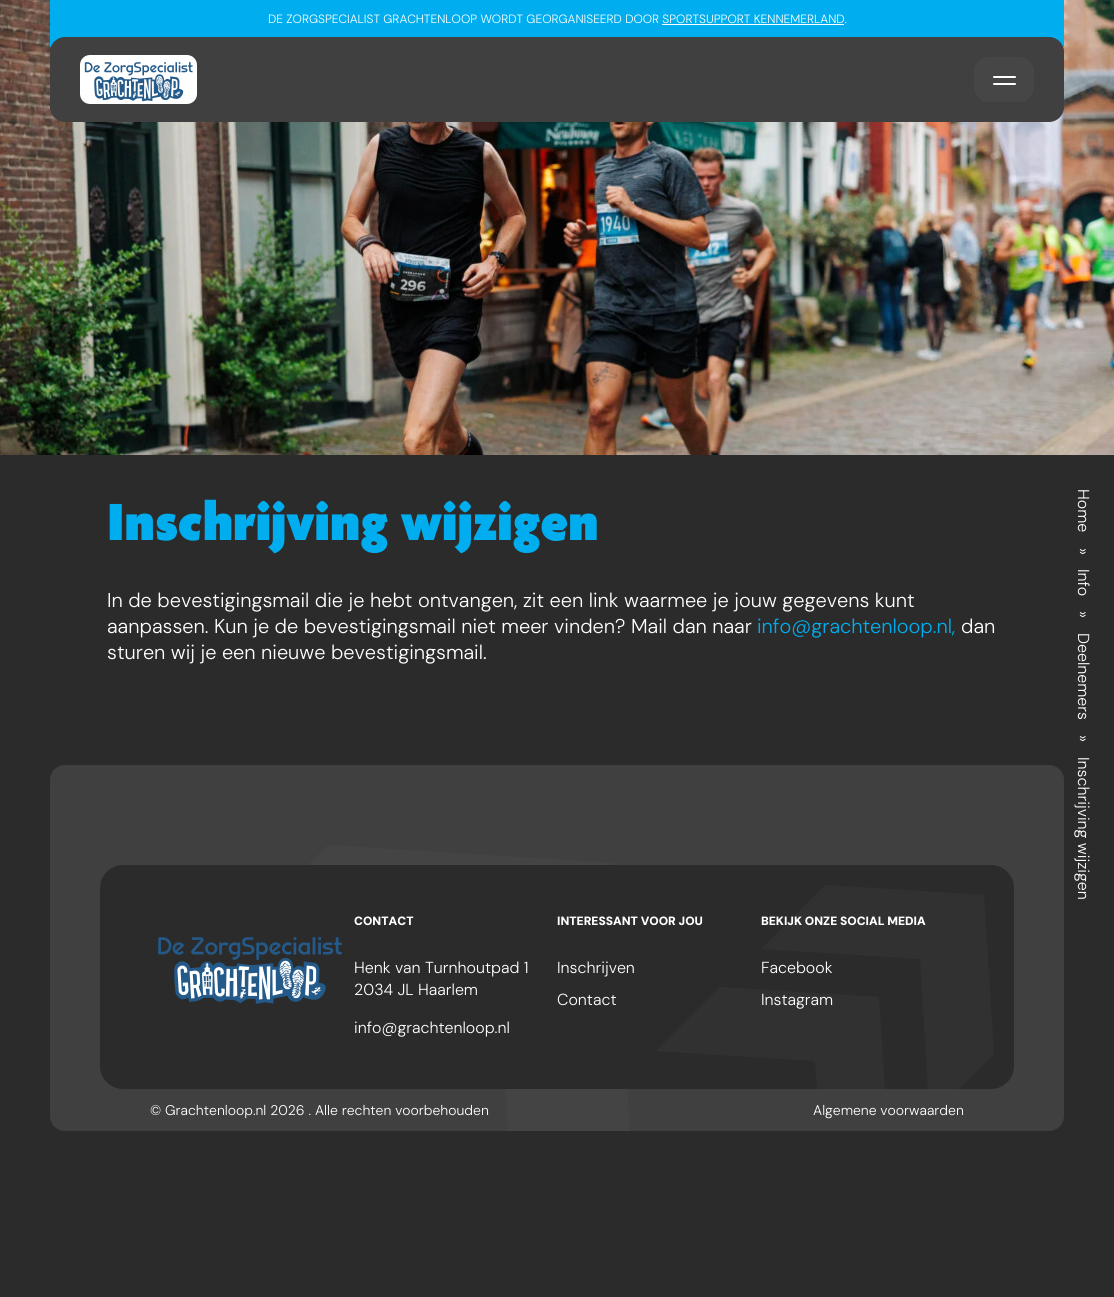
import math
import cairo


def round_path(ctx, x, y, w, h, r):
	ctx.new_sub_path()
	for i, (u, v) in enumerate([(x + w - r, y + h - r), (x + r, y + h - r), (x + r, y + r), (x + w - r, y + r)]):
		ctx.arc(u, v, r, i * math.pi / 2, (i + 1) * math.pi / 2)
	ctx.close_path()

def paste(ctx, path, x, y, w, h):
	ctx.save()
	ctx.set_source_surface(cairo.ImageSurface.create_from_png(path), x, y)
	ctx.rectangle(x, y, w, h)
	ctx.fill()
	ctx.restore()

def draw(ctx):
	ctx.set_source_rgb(0.169, 0.169, 0.169)
	ctx.paint()
	paste(ctx, 'media/2.png', 0, 0, 1114, 455)
	ctx.set_source_rgb(0, 0.682, 0.937)
	ctx.rectangle(50, 0, 1014, 47)
	ctx.fill()
	ctx.select_font_face('DM Sans Light')
	ctx.set_font_size(12)
	ctx.set_source_rgb(1, 1, 1)
	ctx.move_to(268, 23)
	ctx.show_text('DE ZORGSPECIALIST GRACHTENLOOP WORDT GEORGANISEERD DOOR SPORTSUPPORT KENNEMERLAND.')
	ctx.rectangle(662, 24, 182, 1)
	ctx.fill()
	ctx.set_source_rgb(0.251, 0.251, 0.251)
	round_path(ctx, 50, 37, 1014, 85, 15)
	ctx.fill()
	ctx.set_source_rgb(1, 1, 1)
	round_path(ctx, 80, 55, 117, 49, 10)
	ctx.fill()
	paste(ctx, 'media/1.png', 84, 62, 109, 40)
	ctx.set_source_rgb(0.275, 0.275, 0.275)
	round_path(ctx, 974, 57, 60, 45, 15)
	ctx.fill()
	ctx.set_source_rgb(1, 1, 1)
	round_path(ctx, 993, 76, 23, 2, 1)
	ctx.fill()
	round_path(ctx, 993, 83, 23, 2, 1)
	ctx.fill()
	ctx.select_font_face('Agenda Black')
	ctx.set_font_size(56.5)
	ctx.set_source_rgb(0, 0.682, 0.937)
	ctx.move_to(107, 540)
	ctx.show_text('Inschrijving wijzigen')
	ctx.select_font_face('DM Sans Light')
	ctx.set_font_size(20)
	ctx.set_source_rgb(1, 1, 1)
	ctx.move_to(107, 607)
	ctx.show_text('In de bevestigingsmail die je hebt ontvangen, zit een link waarmee je jouw gegevens kunt')
	ctx.move_to(107, 633)
	ctx.show_text('aanpassen. Kun je de bevestigingsmail niet meer vinden? Mail dan naar')
	ctx.set_source_rgb(0, 0.682, 0.937)
	ctx.move_to(757, 633)
	ctx.show_text('info@grachtenloop.nl,')
	ctx.set_source_rgb(1, 1, 1)
	ctx.move_to(961, 633)
	ctx.show_text('dan')
	ctx.move_to(107, 659)
	ctx.show_text('sturen wij je een nieuwe bevestigingsmail.')
	ctx.set_font_size(16)
	ctx.save()
	ctx.translate(1078, 489)
	ctx.rotate(90 * math.pi / 180)
	ctx.move_to(0, 0)
	ctx.show_text('Home')
	ctx.restore()
	ctx.save()
	ctx.translate(1078, 548)
	ctx.rotate(90 * math.pi / 180)
	ctx.move_to(0, 0)
	ctx.show_text('»')
	ctx.restore()
	ctx.save()
	ctx.translate(1078, 569)
	ctx.rotate(90 * math.pi / 180)
	ctx.move_to(0, 0)
	ctx.show_text('Info')
	ctx.restore()
	ctx.save()
	ctx.translate(1078, 611)
	ctx.rotate(90 * math.pi / 180)
	ctx.move_to(0, 0)
	ctx.show_text('»')
	ctx.restore()
	ctx.save()
	ctx.translate(1078, 633)
	ctx.rotate(90 * math.pi / 180)
	ctx.move_to(0, 0)
	ctx.show_text('Deelnemers')
	ctx.restore()
	ctx.save()
	ctx.translate(1078, 735)
	ctx.rotate(90 * math.pi / 180)
	ctx.move_to(0, 0)
	ctx.show_text('»')
	ctx.restore()
	ctx.save()
	ctx.translate(1078, 757)
	ctx.rotate(90 * math.pi / 180)
	ctx.move_to(0, 0)
	ctx.show_text('Inschrijving wijzigen')
	ctx.restore()
	ctx.set_source_rgb(0.251, 0.251, 0.251)
	round_path(ctx, 50, 765, 1014, 366, 15)
	ctx.fill()
	ctx.set_source_rgb(0.267, 0.267, 0.267)
	ctx.new_path()
	ctx.move_to(213, 960)
	ctx.line_to(328, 845)
	ctx.line_to(613, 863)
	ctx.line_to(630, 1131)
	ctx.line_to(508, 1131)
	ctx.line_to(498, 978)
	ctx.close_path()
	ctx.fill()
	ctx.set_source_rgb(0.169, 0.169, 0.169)
	round_path(ctx, 100, 865, 914, 224, 23)
	ctx.fill()
	ctx.select_font_face('DM Sans Black')
	ctx.set_font_size(12)
	ctx.set_source_rgb(1, 1, 1)
	ctx.move_to(354, 925)
	ctx.show_text('CONTACT')
	ctx.select_font_face('DM Sans Light')
	ctx.set_font_size(16)
	for x, y, s in [
		(354, 973, 'Henk van Turnhoutpad 1'),
		(354, 995, '2034 JL Haarlem'),
		(354, 1033, 'info@grachtenloop.nl'),
	]:
		ctx.move_to(x, y)
		ctx.show_text(s)
	ctx.select_font_face('DM Sans Black')
	ctx.set_font_size(12)
	ctx.move_to(557, 925)
	ctx.show_text('INTERESSANT VOOR JOU')
	ctx.select_font_face('DM Sans Light')
	ctx.set_font_size(16)
	ctx.move_to(557, 973)
	ctx.show_text('Inschrijven')
	ctx.move_to(557, 1005)
	ctx.show_text('Contact')
	ctx.set_source_rgb(0.192, 0.192, 0.192)
	ctx.new_path()
	ctx.move_to(761, 949)
	ctx.line_to(825, 885)
	ctx.line_to(984, 895)
	ctx.line_to(994, 1054)
	ctx.line_to(959, 1089)
	ctx.line_to(928, 1089)
	ctx.line_to(920, 959)
	ctx.close_path()
	ctx.fill()
	ctx.new_path()
	ctx.move_to(656, 1051)
	ctx.line_to(720, 987)
	ctx.line_to(879, 997)
	ctx.line_to(885, 1089)
	ctx.line_to(817, 1089)
	ctx.line_to(815, 1061)
	ctx.close_path()
	ctx.fill()
	paste(ctx, 'media/3.png', 158, 937, 184, 67)
	ctx.select_font_face('DM Sans Black')
	ctx.set_font_size(12)
	ctx.set_source_rgb(1, 1, 1)
	ctx.move_to(761, 925)
	ctx.show_text('BEKIJK ONZE SOCIAL MEDIA')
	ctx.select_font_face('DM Sans Light')
	ctx.set_font_size(16)
	ctx.move_to(761, 973)
	ctx.show_text('Facebook')
	ctx.move_to(761, 1005)
	ctx.show_text('Instagram')
	ctx.set_font_size(14)
	ctx.move_to(150, 1115)
	ctx.show_text('© Grachtenloop.nl 2026 . Alle rechten voorbehouden')
	ctx.move_to(813, 1115)
	ctx.show_text('Algemene voorwaarden')


surface = cairo.ImageSurface(cairo.FORMAT_RGB24, 1114, 1297)
ctx = cairo.Context(surface)
options = cairo.FontOptions()
options.set_hint_metrics(cairo.HINT_METRICS_OFF)
options.set_hint_style(cairo.HINT_STYLE_NONE)
ctx.set_font_options(options)
ctx.set_miter_limit(4)
draw(ctx)
surface.write_to_png('image.png')
